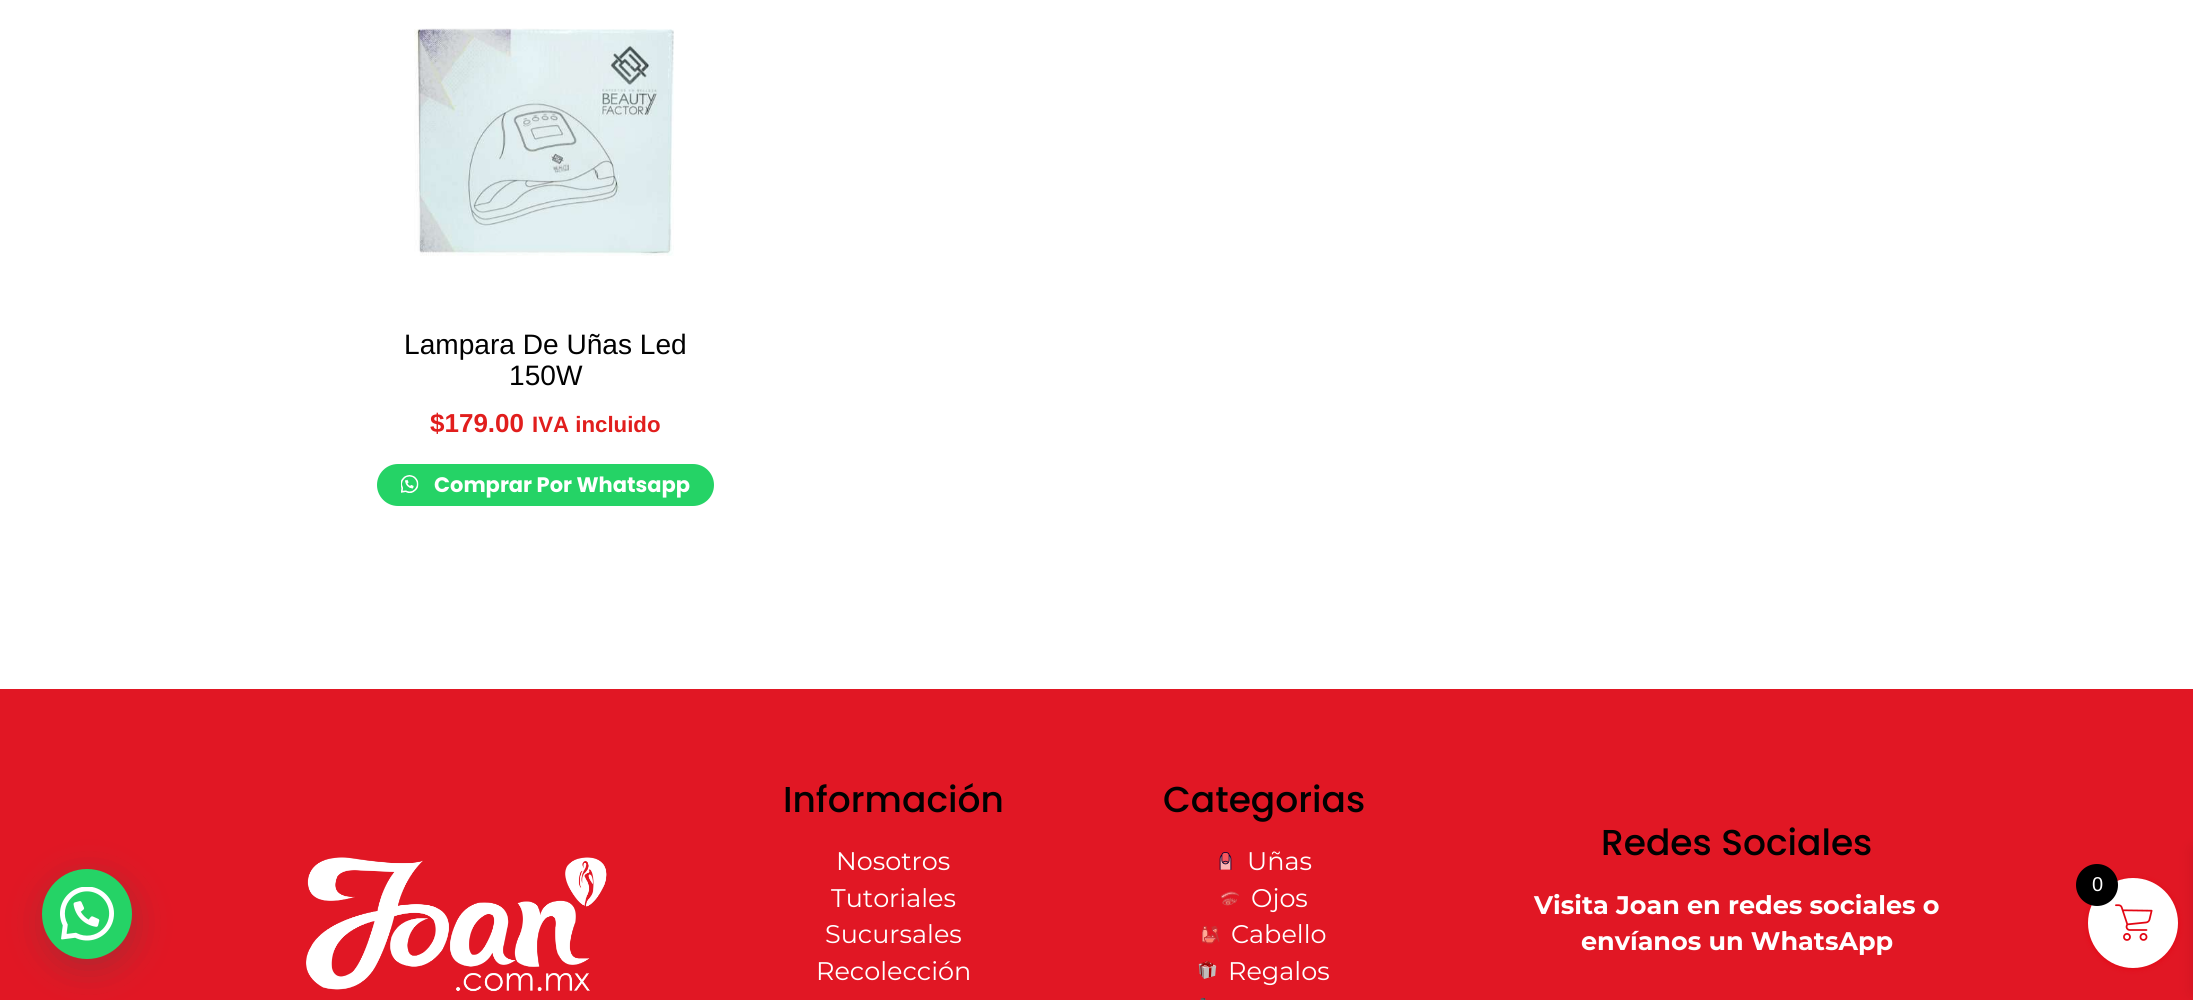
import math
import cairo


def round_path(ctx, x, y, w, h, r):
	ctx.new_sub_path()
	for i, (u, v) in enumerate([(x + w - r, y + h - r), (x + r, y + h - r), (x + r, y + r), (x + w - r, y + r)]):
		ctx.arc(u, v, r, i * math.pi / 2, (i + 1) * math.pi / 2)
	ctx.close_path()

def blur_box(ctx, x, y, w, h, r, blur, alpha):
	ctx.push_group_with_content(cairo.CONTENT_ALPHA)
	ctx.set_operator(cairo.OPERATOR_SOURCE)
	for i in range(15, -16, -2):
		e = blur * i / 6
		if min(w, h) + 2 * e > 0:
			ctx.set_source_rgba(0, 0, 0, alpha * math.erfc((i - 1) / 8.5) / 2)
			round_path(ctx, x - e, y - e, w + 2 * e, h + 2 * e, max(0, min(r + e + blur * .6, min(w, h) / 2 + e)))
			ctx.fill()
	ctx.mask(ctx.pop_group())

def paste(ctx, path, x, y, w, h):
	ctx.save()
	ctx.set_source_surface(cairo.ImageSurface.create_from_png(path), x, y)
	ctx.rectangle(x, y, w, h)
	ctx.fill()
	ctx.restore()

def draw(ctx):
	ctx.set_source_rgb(1, 1, 1)
	ctx.paint()
	ctx.set_source_rgb(0.882, 0.09, 0.141)
	ctx.rectangle(0, 689, 2193, 311)
	ctx.fill()
	ctx.set_source_rgb(0.027, 0.369, 0.329)
	blur_box(ctx, 44, 878, 90, 90, 45, 18, 0.24)
	ctx.set_source_rgb(0.145, 0.827, 0.4)
	ctx.arc(87, 914, 45, 0, 2 * math.pi)
	ctx.fill()
	paste(ctx, 'media/1.png', 60, 887, 54, 54)
	paste(ctx, 'media/2.png', 414, 28, 260, 228)
	ctx.select_font_face('Liberation Sans')
	ctx.set_font_size(28.1)
	ctx.set_source_rgb(0.004, 0.004, 0.004)
	ctx.move_to(404, 354)
	ctx.show_text('Lampara De Uñas Led')
	ctx.move_to(509, 385)
	ctx.show_text('150W')
	ctx.select_font_face('Liberation Sans', cairo.FONT_SLANT_NORMAL, cairo.FONT_WEIGHT_BOLD)
	ctx.set_font_size(26)
	ctx.set_source_rgb(0.882, 0.118, 0.114)
	ctx.move_to(430, 432)
	ctx.show_text('$179.00')
	ctx.set_font_size(22.25)
	ctx.move_to(532, 432)
	ctx.show_text('IVA incluido')
	ctx.set_source_rgb(0.145, 0.827, 0.4)
	round_path(ctx, 377, 464, 337, 42, 21)
	ctx.fill()
	paste(ctx, 'media/3.png', 401, 475, 18, 18)
	ctx.select_font_face('Poppins', cairo.FONT_SLANT_NORMAL, cairo.FONT_WEIGHT_BOLD)
	ctx.set_font_size(21)
	ctx.set_source_rgb(1, 1, 1)
	ctx.move_to(434, 492)
	ctx.show_text('Comprar Por Whatsapp')
	paste(ctx, 'media/4.png', 306, 857, 301, 135)
	ctx.select_font_face('Poppins Medium')
	ctx.set_font_size(36)
	ctx.set_source_rgb(0.004, 0.004, 0.004)
	ctx.move_to(783, 812)
	ctx.show_text('Información')
	ctx.select_font_face('Montserrat')
	ctx.set_font_size(25.5)
	ctx.set_source_rgb(1, 1, 1)
	for x, y, s in [
		(836, 870, 'Nosotros'),
		(831, 907, 'Tutoriales'),
		(825, 943, 'Sucursales'),
		(816, 980, 'Recolección'),
	]:
		ctx.move_to(x, y)
		ctx.show_text(s)
	ctx.select_font_face('Poppins Medium')
	ctx.set_font_size(36)
	ctx.set_source_rgb(0.004, 0.004, 0.004)
	ctx.move_to(1163, 812)
	ctx.show_text('Categorias')
	paste(ctx, 'media/5.png', 1219, 852, 13, 18)
	ctx.select_font_face('Montserrat')
	ctx.set_font_size(25.5)
	ctx.set_source_rgb(1, 1, 1)
	ctx.move_to(1247, 870)
	ctx.show_text('Uñas')
	paste(ctx, 'media/6.png', 1221, 891, 18, 15)
	ctx.move_to(1251, 907)
	ctx.show_text('Ojos')
	paste(ctx, 'media/7.png', 1202, 926, 18, 18)
	ctx.move_to(1231, 943)
	ctx.show_text('Cabello')
	paste(ctx, 'media/8.png', 1198, 961, 19, 18)
	ctx.move_to(1228, 980)
	ctx.show_text('Regalos')
	paste(ctx, 'media/9.png', 1200, 998, 6, 2)
	ctx.select_font_face('Poppins Medium')
	ctx.set_font_size(36)
	ctx.set_source_rgb(0.004, 0.004, 0.004)
	ctx.move_to(1601, 855)
	ctx.show_text('Redes Sociales')
	ctx.select_font_face('Montserrat', cairo.FONT_SLANT_NORMAL, cairo.FONT_WEIGHT_BOLD)
	ctx.set_font_size(25.5)
	ctx.set_source_rgb(1, 1, 1)
	ctx.move_to(1534, 914)
	ctx.show_text('Visita Joan en redes sociales o')
	ctx.move_to(1581, 950)
	ctx.show_text('envíanos un WhatsApp')
	ctx.set_source_rgb(0.89, 0.024, 0.075)
	blur_box(ctx, 2088, 879, 90, 90, 45, 3, 1)
	ctx.set_source_rgb(0, 0, 0)
	blur_box(ctx, 2193, 849, 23, 144, 0, 7.5, 0.1)
	ctx.set_source_rgb(1, 1, 1)
	ctx.arc(2133, 923, 45, 0, 2 * math.pi)
	ctx.fill()
	paste(ctx, 'media/10.png', 2115, 904, 38, 37)
	ctx.set_source_rgb(0, 0, 0)
	ctx.arc(2097, 885, 21, 0, 2 * math.pi)
	ctx.fill()
	ctx.select_font_face('Liberation Sans')
	ctx.set_font_size(20)
	ctx.set_source_rgb(1, 1, 1)
	ctx.move_to(2092, 891)
	ctx.show_text('0')


surface = cairo.ImageSurface(cairo.FORMAT_RGB24, 2193, 1000)
ctx = cairo.Context(surface)
options = cairo.FontOptions()
options.set_hint_metrics(cairo.HINT_METRICS_OFF)
options.set_hint_style(cairo.HINT_STYLE_NONE)
ctx.set_font_options(options)
ctx.set_miter_limit(4)
draw(ctx)
surface.write_to_png('image.png')
